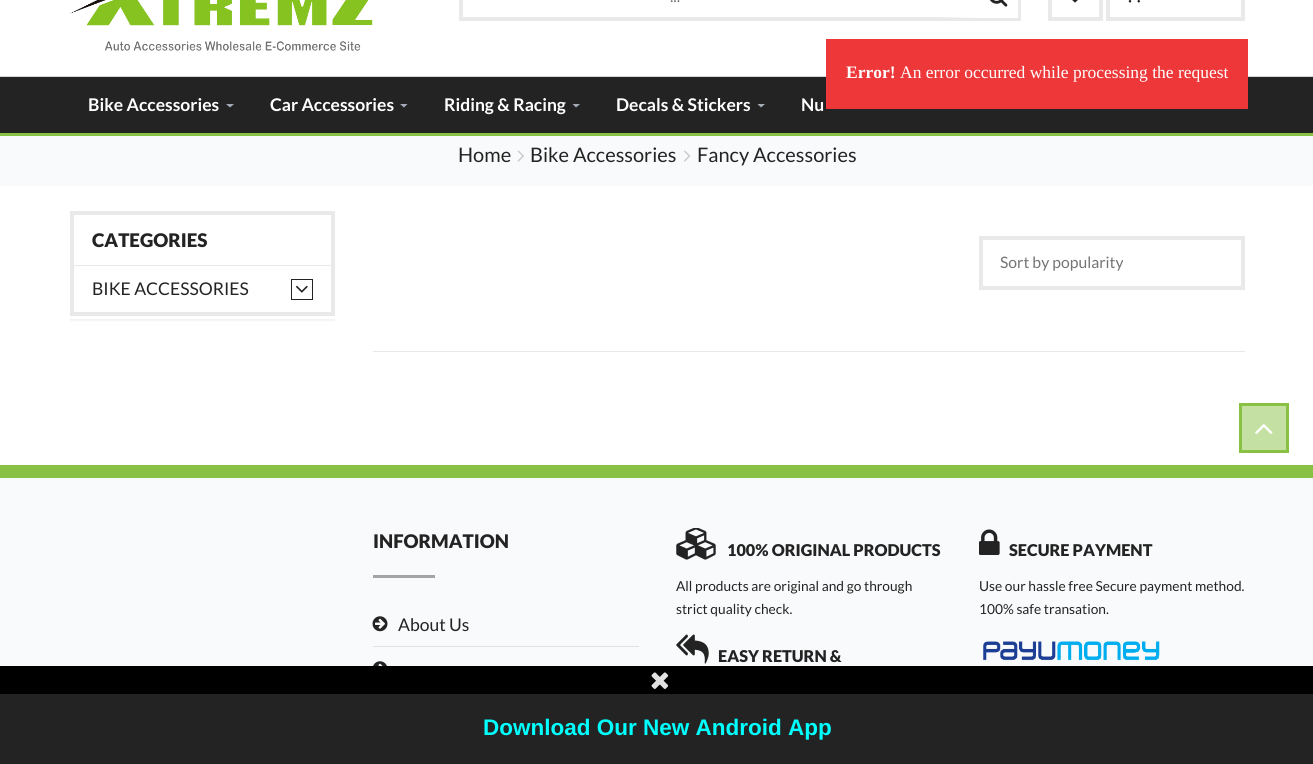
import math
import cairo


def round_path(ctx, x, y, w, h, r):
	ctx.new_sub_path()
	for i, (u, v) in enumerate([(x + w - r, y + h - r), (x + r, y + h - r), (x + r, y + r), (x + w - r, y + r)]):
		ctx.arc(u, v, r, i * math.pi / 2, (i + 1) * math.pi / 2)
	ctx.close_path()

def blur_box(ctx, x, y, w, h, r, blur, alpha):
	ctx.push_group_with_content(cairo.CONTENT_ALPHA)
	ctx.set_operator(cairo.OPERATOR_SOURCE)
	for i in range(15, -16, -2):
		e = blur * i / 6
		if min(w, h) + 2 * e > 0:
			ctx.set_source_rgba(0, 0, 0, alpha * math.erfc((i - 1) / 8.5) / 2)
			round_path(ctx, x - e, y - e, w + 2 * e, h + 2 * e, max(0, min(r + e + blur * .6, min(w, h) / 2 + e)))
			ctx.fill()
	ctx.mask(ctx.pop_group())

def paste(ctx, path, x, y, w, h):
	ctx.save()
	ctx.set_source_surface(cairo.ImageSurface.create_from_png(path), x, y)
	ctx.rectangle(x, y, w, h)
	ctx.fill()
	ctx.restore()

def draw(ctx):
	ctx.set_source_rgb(1, 1, 1)
	ctx.paint()
	ctx.set_source_rgb(0.537, 0.757, 0.267)
	ctx.rectangle(0, 133, 1313, 3)
	ctx.fill()
	paste(ctx, 'media/1.png', 70, 0, 303, 51)
	ctx.rectangle(461, -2, 558, 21)
	ctx.set_source_rgb(0.914, 0.914, 0.914)
	ctx.set_line_width(4)
	ctx.stroke()
	ctx.select_font_face('Lato')
	ctx.set_font_size(15.75)
	ctx.set_source_rgb(0.451, 0.455, 0.459)
	ctx.move_to(670, 2)
	ctx.show_text('...')
	ctx.set_source_rgb(1, 1, 1)
	ctx.rectangle(979, 0, 39, 18)
	ctx.fill()
	paste(ctx, 'media/2.png', 990, 0, 18, 7)
	gradient = cairo.LinearGradient(936, -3.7, 979, -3.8)
	gradient.add_color_stop_rgba(0, 1, 1, 1, 0)
	gradient.add_color_stop_rgba(1, 1, 1, 1, 1)
	ctx.set_source(gradient)
	ctx.rectangle(941, 17, 38, 1)
	ctx.fill()
	ctx.rectangle(1050, -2, 51, 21)
	ctx.set_source_rgb(0.914, 0.914, 0.914)
	ctx.stroke()
	paste(ctx, 'media/3.png', 1072, 0, 6, 3)
	ctx.rectangle(1108, -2, 135, 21)
	ctx.stroke()
	paste(ctx, 'media/4.png', 1128, 0, 12, 3)
	ctx.set_source_rgb(0.137, 0.137, 0.137)
	ctx.rectangle(0, 77, 1313, 56)
	ctx.fill()
	ctx.set_source_rgb(0.827, 0.835, 0.843)
	ctx.rectangle(0, 76, 1313, 1)
	ctx.fill()
	ctx.select_font_face('Lato', cairo.FONT_SLANT_NORMAL, cairo.FONT_WEIGHT_BOLD)
	ctx.set_font_size(17.5)
	ctx.set_source_rgb(1, 1, 1)
	ctx.move_to(88, 111)
	ctx.show_text('Bike Accessories')
	ctx.set_source_rgb(0.647, 0.671, 0.718)
	ctx.new_path()
	ctx.move_to(226, 104)
	ctx.line_to(234, 104)
	ctx.line_to(230, 107.5)
	ctx.close_path()
	ctx.fill()
	ctx.set_source_rgb(1, 1, 1)
	ctx.move_to(270, 111)
	ctx.show_text('Car Accessories')
	ctx.set_source_rgb(0.647, 0.671, 0.718)
	ctx.new_path()
	ctx.move_to(400, 104)
	ctx.line_to(407.5, 104)
	ctx.line_to(404, 107.5)
	ctx.close_path()
	ctx.fill()
	ctx.set_source_rgb(1, 1, 1)
	ctx.move_to(444, 111)
	ctx.show_text('Riding & Racing')
	ctx.set_source_rgb(0.647, 0.671, 0.718)
	ctx.new_path()
	ctx.move_to(572.5, 104)
	ctx.line_to(580, 104)
	ctx.line_to(576, 107.5)
	ctx.close_path()
	ctx.fill()
	ctx.set_source_rgb(1, 1, 1)
	ctx.move_to(616, 111)
	ctx.show_text('Decals & Stickers')
	ctx.set_source_rgb(0.647, 0.671, 0.718)
	ctx.new_path()
	ctx.move_to(757.5, 104)
	ctx.line_to(765, 104)
	ctx.line_to(761, 107.5)
	ctx.close_path()
	ctx.fill()
	ctx.set_source_rgb(1, 1, 1)
	ctx.move_to(801, 111)
	ctx.show_text('Nu')
	ctx.set_source_rgb(0.929, 0.216, 0.224)
	ctx.rectangle(826, 39, 422, 70)
	ctx.fill()
	ctx.select_font_face('Liberation Serif', cairo.FONT_SLANT_NORMAL, cairo.FONT_WEIGHT_BOLD)
	ctx.set_source_rgb(1, 1, 1)
	ctx.move_to(846, 78)
	ctx.show_text('Error!')
	ctx.select_font_face('Liberation Serif')
	ctx.move_to(900, 78)
	ctx.show_text('An error occurred while processing the request')
	ctx.set_source_rgb(0.976, 0.98, 0.984)
	ctx.rectangle(0, 136, 1313, 50)
	ctx.fill()
	ctx.select_font_face('Lato')
	ctx.set_font_size(20)
	ctx.set_source_rgb(0.137, 0.137, 0.137)
	ctx.move_to(458, 162)
	ctx.show_text('Home')
	paste(ctx, 'media/5.png', 517, 150, 7, 12)
	ctx.move_to(530, 162)
	ctx.show_text('Bike Accessories')
	paste(ctx, 'media/6.png', 684, 150, 7, 12)
	ctx.move_to(697, 162)
	ctx.show_text('Fancy Accessories')
	ctx.rectangle(72, 213, 261, 101)
	ctx.set_source_rgb(0.914, 0.914, 0.914)
	ctx.stroke()
	ctx.select_font_face('Lato Black')
	ctx.set_font_size(18.75)
	ctx.set_source_rgb(0.137, 0.137, 0.137)
	ctx.move_to(92, 247)
	ctx.show_text('CATEGORIES')
	ctx.set_source_rgb(0.914, 0.914, 0.914)
	ctx.rectangle(74, 265, 257, 1)
	ctx.fill()
	ctx.select_font_face('Lato')
	ctx.set_font_size(17.5)
	ctx.set_source_rgb(0.137, 0.137, 0.137)
	ctx.move_to(92, 295)
	ctx.show_text('BIKE ACCESSORIES')
	ctx.rectangle(291.5, 279.5, 21, 20)
	ctx.set_line_width(1)
	ctx.stroke()
	paste(ctx, 'media/7.png', 296, 285, 12, 8)
	ctx.set_source_rgb(0, 0, 0)
	blur_box(ctx, 70, 318, 265, 3, 1.5, 0.5, 0.05)
	ctx.set_source_rgb(1, 1, 1)
	round_path(ctx, 70, 316, 265, 3, 1.5)
	ctx.fill()
	ctx.set_source_rgb(0.914, 0.914, 0.914)
	ctx.rectangle(373, 351, 872, 1)
	ctx.fill()
	ctx.rectangle(981, 238, 262, 50)
	ctx.set_line_width(4)
	ctx.stroke()
	ctx.set_font_size(15.75)
	ctx.set_source_rgb(0.451, 0.455, 0.459)
	ctx.move_to(1000, 268)
	ctx.show_text('Sort by popularity')
	ctx.set_source_rgb(0.769, 0.878, 0.635)
	ctx.rectangle(1240.5, 404.5, 47, 47)
	ctx.fill_preserve()
	ctx.set_source_rgb(0.537, 0.757, 0.267)
	ctx.set_line_width(3)
	ctx.stroke()
	paste(ctx, 'media/8.png', 1255, 424, 18, 10)
	ctx.set_source_rgb(0.976, 0.98, 0.984)
	ctx.rectangle(0, 478, 1313, 188)
	ctx.fill()
	ctx.set_source_rgb(0.537, 0.757, 0.267)
	ctx.rectangle(0, 465, 1313, 13)
	ctx.fill()
	ctx.select_font_face('Lato Black')
	ctx.set_font_size(18.75)
	ctx.set_source_rgb(0.137, 0.137, 0.137)
	ctx.move_to(373, 548)
	ctx.show_text('INFORMATION')
	ctx.set_source_rgb(0.639, 0.643, 0.647)
	ctx.rectangle(373, 575, 62, 3)
	ctx.fill()
	paste(ctx, 'media/9.png', 372, 616, 16, 16)
	ctx.select_font_face('Lato')
	ctx.set_font_size(17.5)
	ctx.set_source_rgb(0.137, 0.137, 0.137)
	ctx.move_to(398, 631)
	ctx.show_text('About Us')
	ctx.set_source_rgb(0.878, 0.882, 0.886)
	ctx.rectangle(373, 646, 266, 1)
	ctx.fill()
	paste(ctx, 'media/10.png', 373, 661, 14, 5)
	paste(ctx, 'media/11.png', 676, 528, 40, 32)
	ctx.select_font_face('Lato Black')
	ctx.set_font_size(16.25)
	ctx.set_source_rgb(0.137, 0.137, 0.137)
	ctx.move_to(727, 556)
	ctx.show_text('100% ORIGINAL PRODUCTS')
	ctx.select_font_face('Lato')
	ctx.set_font_size(13.75)
	ctx.move_to(676, 591)
	ctx.show_text('All products are original and go through')
	ctx.move_to(676, 614)
	ctx.show_text('strict quality check.')
	paste(ctx, 'media/12.png', 676, 634, 33, 30)
	ctx.select_font_face('Lato Black')
	ctx.set_font_size(16.25)
	ctx.move_to(718, 662)
	ctx.show_text('EASY RETURN &')
	paste(ctx, 'media/13.png', 979, 529, 21, 26)
	ctx.move_to(1009, 556)
	ctx.show_text('SECURE PAYMENT')
	ctx.select_font_face('Lato')
	ctx.set_font_size(13.75)
	ctx.move_to(979, 591)
	ctx.show_text('Use our hassle free Secure payment method.')
	ctx.move_to(979, 614)
	ctx.show_text('100% safe transation.')
	paste(ctx, 'media/14.png', 983, 641, 177, 20)
	ctx.rectangle(0, 694, 1313, 70)
	ctx.fill()
	ctx.set_source_rgb(0, 0, 0)
	ctx.rectangle(0, 666, 1313, 28)
	ctx.fill()
	paste(ctx, 'media/15.png', 651, 672, 18, 17)
	ctx.select_font_face('Liberation Sans', cairo.FONT_SLANT_NORMAL, cairo.FONT_WEIGHT_BOLD)
	ctx.set_font_size(22.5)
	ctx.set_source_rgb(0, 1, 1)
	ctx.move_to(483, 735)
	ctx.show_text('Download Our New Android App')


surface = cairo.ImageSurface(cairo.FORMAT_RGB24, 1313, 764)
ctx = cairo.Context(surface)
options = cairo.FontOptions()
options.set_hint_metrics(cairo.HINT_METRICS_OFF)
options.set_hint_style(cairo.HINT_STYLE_NONE)
ctx.set_font_options(options)
ctx.set_miter_limit(4)
draw(ctx)
surface.write_to_png('image.png')
